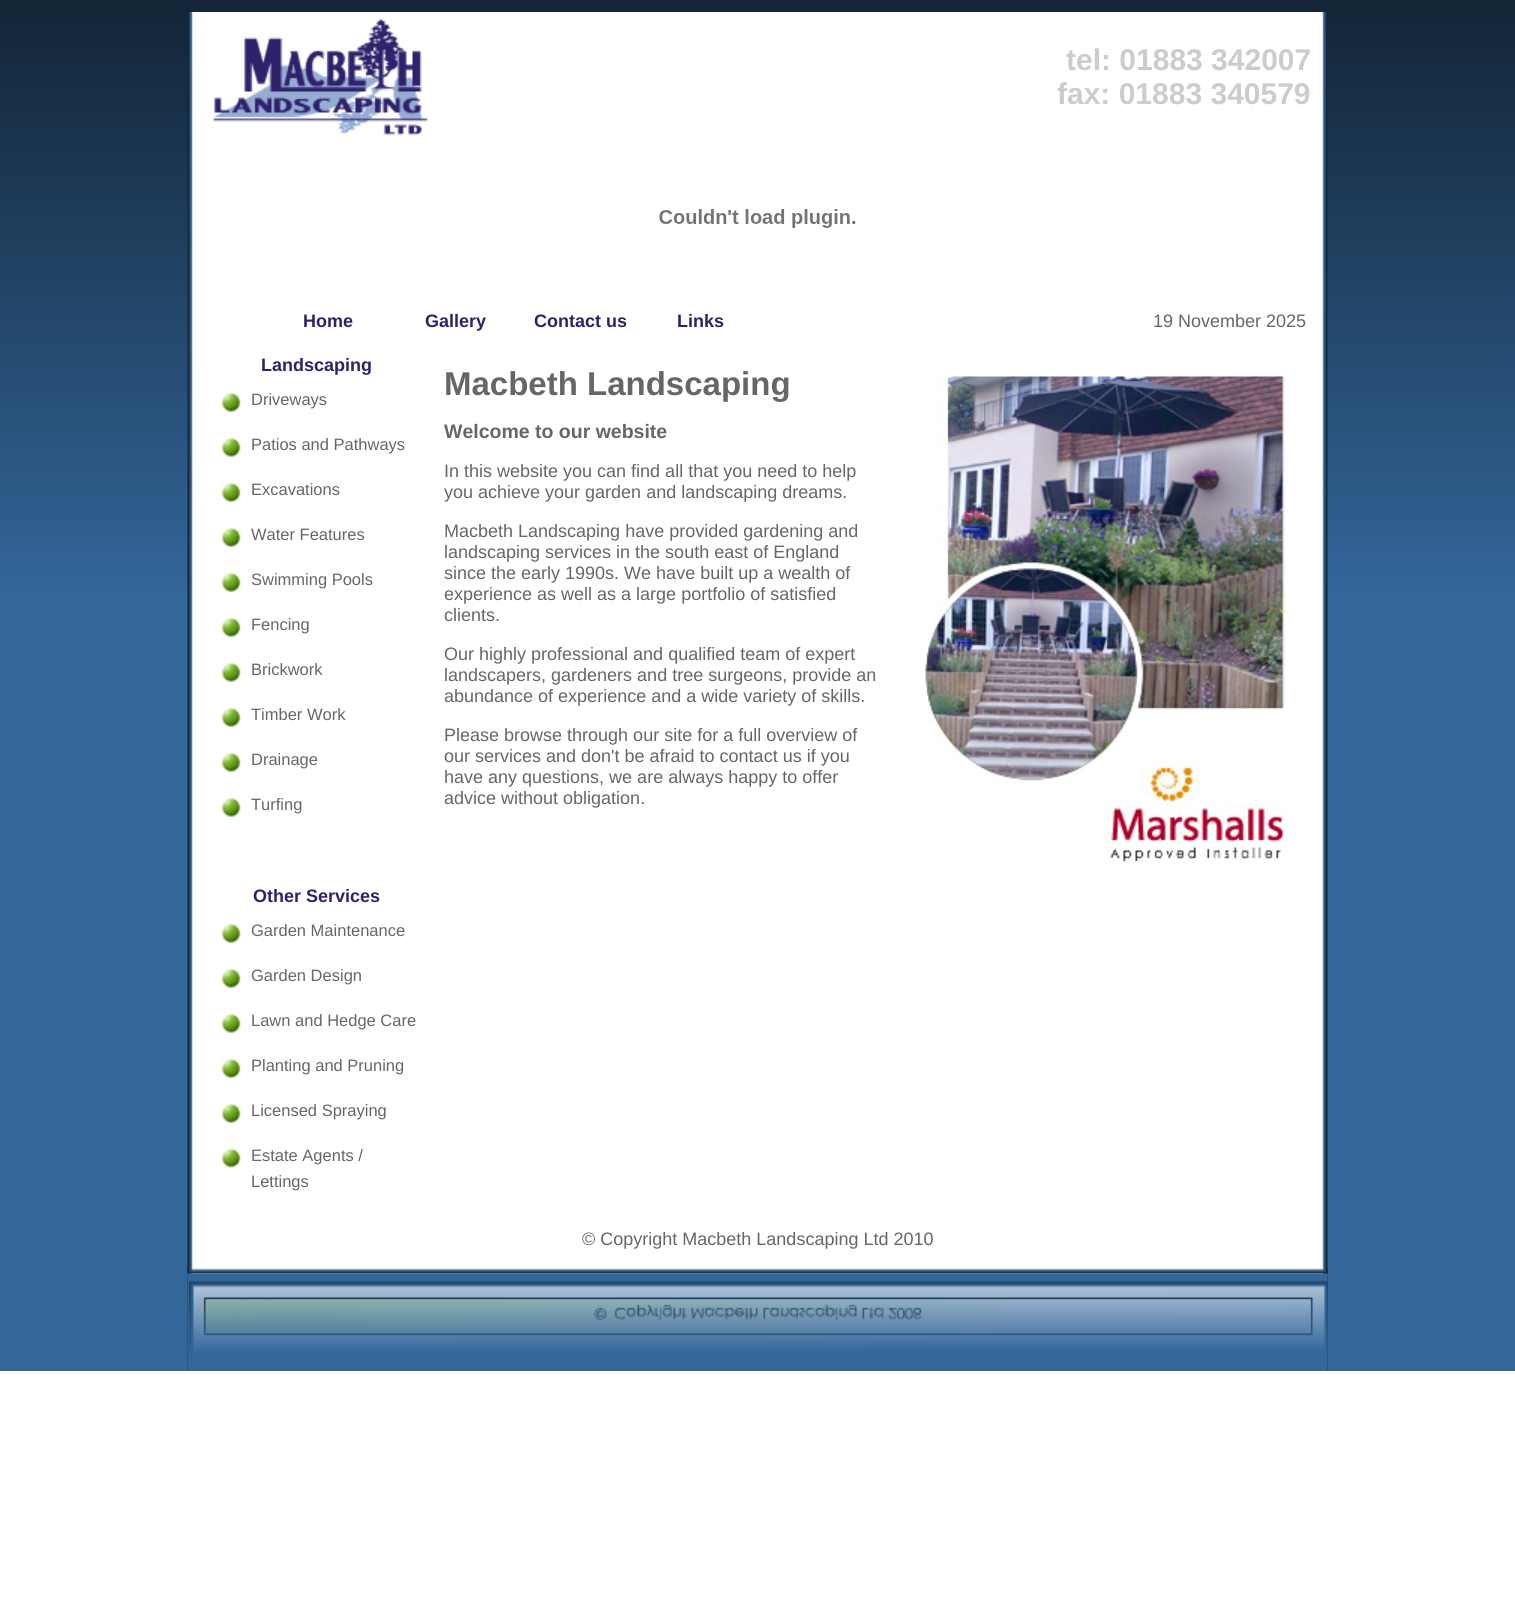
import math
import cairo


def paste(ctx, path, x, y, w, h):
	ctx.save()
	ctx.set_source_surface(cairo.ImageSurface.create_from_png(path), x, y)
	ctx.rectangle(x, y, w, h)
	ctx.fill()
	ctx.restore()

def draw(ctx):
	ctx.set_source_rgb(1, 1, 1)
	ctx.paint()
	paste(ctx, 'media/1.png', 0, 0, 1515, 1371)
	paste(ctx, 'media/2.png', 187, 0, 1141, 1371)
	ctx.set_source_rgb(0.075, 0.145, 0.216)
	ctx.rectangle(188, 0, 1140, 12)
	ctx.fill()
	paste(ctx, 'media/3.png', 212, 19, 216, 117)
	ctx.select_font_face('Liberation Sans', cairo.FONT_SLANT_NORMAL, cairo.FONT_WEIGHT_BOLD)
	ctx.set_font_size(30)
	ctx.set_source_rgb(0.8, 0.8, 0.8)
	ctx.move_to(1066, 70)
	ctx.show_text('tel: 01883 342007')
	ctx.move_to(1057, 104)
	ctx.show_text('fax: 01883 340579')
	paste(ctx, 'media/4.png', 659, 209, 197, 19)
	ctx.set_font_size(18)
	ctx.set_source_rgb(0.18, 0.133, 0.424)
	for x, y, s in [
		(303, 327, 'Home'),
		(425, 327, 'Gallery'),
		(534, 327, 'Contact us'),
		(677, 327, 'Links'),
	]:
		ctx.move_to(x, y)
		ctx.show_text(s)
	ctx.select_font_face('Liberation Sans')
	ctx.set_source_rgb(0.4, 0.4, 0.4)
	ctx.move_to(1153, 327)
	ctx.show_text('19 November 2025')
	ctx.select_font_face('Liberation Sans', cairo.FONT_SLANT_NORMAL, cairo.FONT_WEIGHT_BOLD)
	ctx.set_source_rgb(0.18, 0.133, 0.424)
	ctx.move_to(261, 371)
	ctx.show_text('Landscaping')
	paste(ctx, 'media/5.png', 221, 392, 20, 20)
	ctx.select_font_face('Liberation Sans')
	ctx.set_font_size(16.5)
	ctx.set_source_rgb(0.4, 0.4, 0.4)
	ctx.move_to(251, 405)
	ctx.show_text('Driveways')
	paste(ctx, 'media/5.png', 221, 437, 20, 20)
	ctx.move_to(251, 450)
	ctx.show_text('Patios and Pathways')
	paste(ctx, 'media/5.png', 221, 482, 20, 20)
	ctx.move_to(251, 495)
	ctx.show_text('Excavations')
	paste(ctx, 'media/5.png', 221, 527, 20, 20)
	ctx.move_to(251, 540)
	ctx.show_text('Water Features')
	paste(ctx, 'media/5.png', 221, 572, 20, 20)
	ctx.move_to(251, 585)
	ctx.show_text('Swimming Pools')
	paste(ctx, 'media/5.png', 221, 617, 20, 20)
	ctx.move_to(251, 630)
	ctx.show_text('Fencing')
	paste(ctx, 'media/5.png', 221, 662, 20, 20)
	ctx.move_to(251, 675)
	ctx.show_text('Brickwork')
	paste(ctx, 'media/5.png', 221, 707, 20, 20)
	ctx.move_to(251, 720)
	ctx.show_text('Timber Work')
	paste(ctx, 'media/5.png', 221, 752, 20, 20)
	ctx.move_to(251, 765)
	ctx.show_text('Drainage')
	paste(ctx, 'media/5.png', 221, 797, 20, 20)
	ctx.move_to(251, 810)
	ctx.show_text('Turfing')
	ctx.select_font_face('Liberation Sans', cairo.FONT_SLANT_NORMAL, cairo.FONT_WEIGHT_BOLD)
	ctx.set_font_size(18)
	ctx.set_source_rgb(0.18, 0.133, 0.424)
	ctx.move_to(253, 902)
	ctx.show_text('Other Services')
	paste(ctx, 'media/5.png', 221, 923, 20, 20)
	ctx.select_font_face('Liberation Sans')
	ctx.set_font_size(16.5)
	ctx.set_source_rgb(0.4, 0.4, 0.4)
	ctx.move_to(251, 936)
	ctx.show_text('Garden Maintenance')
	paste(ctx, 'media/5.png', 221, 968, 20, 20)
	ctx.move_to(251, 981)
	ctx.show_text('Garden Design')
	paste(ctx, 'media/5.png', 221, 1013, 20, 20)
	ctx.move_to(251, 1026)
	ctx.show_text('Lawn and Hedge Care')
	paste(ctx, 'media/5.png', 221, 1058, 20, 20)
	ctx.move_to(251, 1071)
	ctx.show_text('Planting and Pruning')
	paste(ctx, 'media/5.png', 221, 1103, 20, 20)
	ctx.move_to(251, 1116)
	ctx.show_text('Licensed Spraying')
	paste(ctx, 'media/6.png', 221, 1148, 20, 20)
	ctx.move_to(251, 1161)
	ctx.show_text('Estate Agents /')
	ctx.move_to(251, 1187)
	ctx.show_text('Lettings')
	ctx.select_font_face('Liberation Sans', cairo.FONT_SLANT_NORMAL, cairo.FONT_WEIGHT_BOLD)
	ctx.set_font_size(33)
	ctx.move_to(444, 395)
	ctx.show_text('Macbeth Landscaping')
	ctx.set_font_size(19.5)
	ctx.move_to(444, 438)
	ctx.show_text('Welcome to our website')
	ctx.select_font_face('Liberation Sans')
	ctx.set_font_size(18)
	for x, y, s in [
		(444, 477, 'In this website you can find all that you need to help'),
		(444, 498, 'you achieve your garden and landscaping dreams.'),
		(444, 537, 'Macbeth Landscaping have provided gardening and'),
		(444, 558, 'landscaping services in the south east of England'),
		(444, 579, 'since the early 1990s. We have built up a wealth of'),
		(444, 600, 'experience as well as a large portfolio of satisfied'),
		(444, 621, 'clients.'),
		(444, 660, 'Our highly professional and qualified team of expert'),
		(444, 681, 'landscapers, gardeners and tree surgeons, provide an'),
		(444, 702, 'abundance of experience and a wide variety of skills.'),
		(444, 741, 'Please browse through our site for a full overview of'),
		(444, 762, 'our services and don\'t be afraid to contact us if you'),
		(444, 783, 'have any questions, we are always happy to offer'),
		(444, 804, 'advice without obligation.'),
	]:
		ctx.move_to(x, y)
		ctx.show_text(s)
	paste(ctx, 'media/7.png', 925, 376, 361, 486)
	ctx.move_to(582, 1245)
	ctx.show_text('© Copyright Macbeth Landscaping Ltd 2010')
	paste(ctx, 'media/8.png', 187, 1267, 1141, 7)
	paste(ctx, 'media/9.png', 187, 1273, 1141, 98)


surface = cairo.ImageSurface(cairo.FORMAT_RGB24, 1515, 1602)
ctx = cairo.Context(surface)
options = cairo.FontOptions()
options.set_hint_metrics(cairo.HINT_METRICS_OFF)
options.set_hint_style(cairo.HINT_STYLE_NONE)
ctx.set_font_options(options)
ctx.set_miter_limit(4)
draw(ctx)
surface.write_to_png('image.png')
